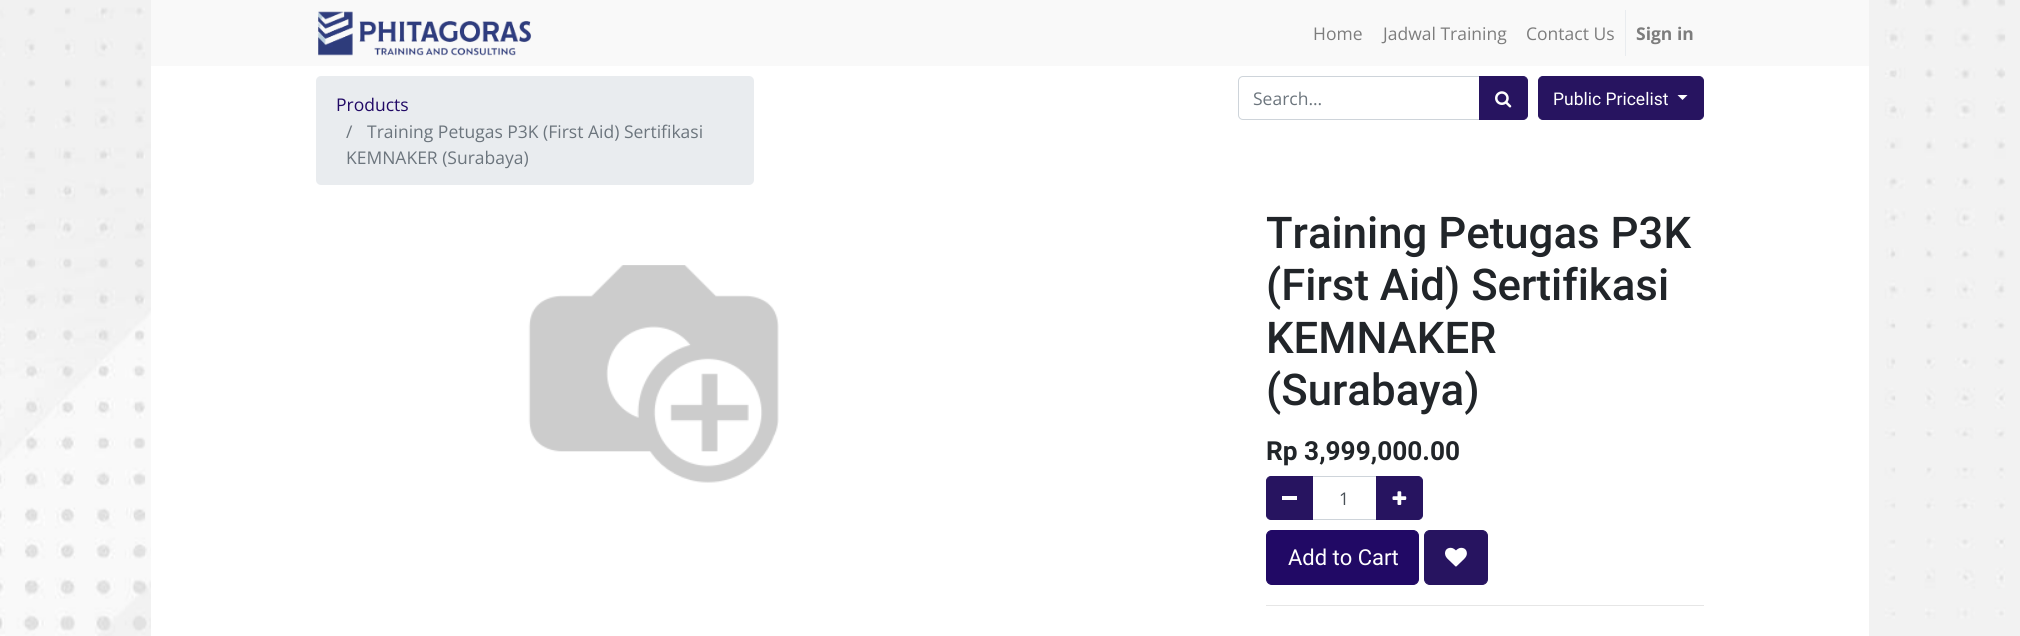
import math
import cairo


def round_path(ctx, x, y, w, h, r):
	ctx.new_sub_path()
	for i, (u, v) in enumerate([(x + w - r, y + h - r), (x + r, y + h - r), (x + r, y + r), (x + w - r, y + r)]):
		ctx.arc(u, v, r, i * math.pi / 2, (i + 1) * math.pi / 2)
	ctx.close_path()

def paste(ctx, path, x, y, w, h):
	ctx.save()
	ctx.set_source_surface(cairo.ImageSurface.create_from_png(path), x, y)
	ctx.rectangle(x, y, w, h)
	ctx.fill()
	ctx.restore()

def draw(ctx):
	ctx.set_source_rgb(1, 1, 1)
	ctx.paint()
	paste(ctx, 'media/1.png', 0, 0, 2020, 636)
	ctx.set_source_rgb(0.976, 0.976, 0.976)
	ctx.rectangle(151, 0, 1718, 66)
	ctx.fill()
	paste(ctx, 'media/2.png', 318, 11, 214, 45)
	ctx.select_font_face('Open Sans')
	ctx.set_font_size(17.5)
	ctx.set_source_rgb(0.49, 0.49, 0.49)
	for x, y, s in [
		(1313, 40, 'Home'),
		(1383, 40, 'Jadwal Training'),
		(1526, 40, 'Contact Us'),
	]:
		ctx.move_to(x, y)
		ctx.show_text(s)
	ctx.set_source_rgb(0.914, 0.925, 0.937)
	ctx.rectangle(1625, 10, 1, 46)
	ctx.fill()
	ctx.select_font_face('Open Sans', cairo.FONT_SLANT_NORMAL, cairo.FONT_WEIGHT_BOLD)
	ctx.set_source_rgb(0.49, 0.49, 0.49)
	ctx.move_to(1636, 40)
	ctx.show_text('Sign in')
	ctx.set_source_rgb(1, 1, 1)
	ctx.rectangle(151, 66, 1718, 570)
	ctx.fill()
	ctx.set_source_rgb(0.914, 0.925, 0.937)
	round_path(ctx, 316, 76, 438, 109, 5)
	ctx.fill()
	ctx.select_font_face('Open Sans')
	ctx.set_source_rgb(0.129, 0.039, 0.396)
	ctx.move_to(336, 111)
	ctx.show_text('Products')
	ctx.set_source_rgb(0.424, 0.459, 0.49)
	for x, y, s in [
		(346, 138, '/'),
		(367, 138, 'Training Petugas P3K (First Aid) Sertifikasi'),
		(346, 164, 'KEMNAKER (Surabaya)'),
	]:
		ctx.move_to(x, y)
		ctx.show_text(s)
	ctx.new_path()
	ctx.move_to(1243, 76.5)
	ctx.line_to(1479.5, 76.5)
	ctx.line_to(1479.5, 119.5)
	ctx.line_to(1243, 119.5)
	ctx.curve_to(1240.5, 119.5, 1238.5, 117.5, 1238.5, 115)
	ctx.line_to(1238.5, 81)
	ctx.curve_to(1238.5, 78.5, 1240.5, 76.5, 1243, 76.5)
	ctx.close_path()
	ctx.set_source_rgb(0.808, 0.831, 0.855)
	ctx.set_line_width(1)
	ctx.stroke()
	ctx.set_source_rgb(0.424, 0.459, 0.49)
	ctx.move_to(1253, 105)
	ctx.show_text('Search...')
	ctx.set_source_rgb(0.153, 0.082, 0.376)
	ctx.new_path()
	ctx.move_to(1479.5, 76.5)
	ctx.line_to(1523, 76.5)
	ctx.curve_to(1525.5, 76.5, 1527.5, 78.5, 1527.5, 81)
	ctx.line_to(1527.5, 115)
	ctx.curve_to(1527.5, 117.5, 1525.5, 119.5, 1523, 119.5)
	ctx.line_to(1479.5, 119.5)
	ctx.close_path()
	ctx.fill_preserve()
	ctx.stroke()
	paste(ctx, 'media/3.png', 1495, 91, 17, 17)
	round_path(ctx, 1538.5, 76.5, 165, 43, 4.5)
	ctx.fill_preserve()
	ctx.stroke()
	ctx.select_font_face('Roboto')
	ctx.set_source_rgb(1, 1, 1)
	ctx.move_to(1553, 105)
	ctx.show_text('Public Pricelist')
	ctx.new_path()
	ctx.move_to(1677.5, 95)
	ctx.line_to(1687.5, 95)
	ctx.line_to(1682.5, 100)
	ctx.close_path()
	ctx.fill()
	paste(ctx, 'media/4.png', 528, 265, 251, 218)
	ctx.select_font_face('Roboto Medium')
	ctx.set_font_size(43.75)
	ctx.set_source_rgb(0.129, 0.145, 0.161)
	for x, y, s in [
		(1266, 248, 'Training Petugas P3K'),
		(1266, 300, '(First Aid) Sertifikasi'),
		(1266, 353, 'KEMNAKER'),
		(1266, 405, '(Surabaya)'),
	]:
		ctx.move_to(x, y)
		ctx.show_text(s)
	ctx.select_font_face('Roboto', cairo.FONT_SLANT_NORMAL, cairo.FONT_WEIGHT_BOLD)
	ctx.set_font_size(26.25)
	ctx.move_to(1266, 460)
	ctx.show_text('Rp 3,999,000.00')
	ctx.rectangle(1311.5, 476.5, 66, 43)
	ctx.set_source_rgb(0.808, 0.831, 0.855)
	ctx.stroke()
	ctx.set_source_rgb(0.153, 0.082, 0.376)
	ctx.new_path()
	ctx.move_to(1271, 476.5)
	ctx.line_to(1312.5, 476.5)
	ctx.line_to(1312.5, 519.5)
	ctx.line_to(1271, 519.5)
	ctx.curve_to(1268.5, 519.5, 1266.5, 517.5, 1266.5, 515)
	ctx.line_to(1266.5, 481)
	ctx.curve_to(1266.5, 478.5, 1268.5, 476.5, 1271, 476.5)
	ctx.close_path()
	ctx.fill_preserve()
	ctx.stroke()
	ctx.set_source_rgb(1, 1, 1)
	ctx.rectangle(1282, 496, 15, 4)
	ctx.fill()
	ctx.select_font_face('Open Sans')
	ctx.set_font_size(17.5)
	ctx.set_source_rgb(0.286, 0.314, 0.341)
	ctx.move_to(1339, 505)
	ctx.show_text('1')
	ctx.set_source_rgb(0.153, 0.082, 0.376)
	ctx.new_path()
	ctx.move_to(1376.5, 476.5)
	ctx.line_to(1418, 476.5)
	ctx.curve_to(1420.5, 476.5, 1422.5, 478.5, 1422.5, 481)
	ctx.line_to(1422.5, 515)
	ctx.curve_to(1422.5, 517.5, 1420.5, 519.5, 1418, 519.5)
	ctx.line_to(1376.5, 519.5)
	ctx.close_path()
	ctx.fill_preserve()
	ctx.stroke()
	paste(ctx, 'media/5.png', 1392, 491, 15, 14)
	ctx.set_source_rgb(0.129, 0.039, 0.396)
	round_path(ctx, 1266.5, 530.5, 152, 54, 5.5)
	ctx.fill_preserve()
	ctx.stroke()
	ctx.select_font_face('Roboto')
	ctx.set_font_size(22)
	ctx.set_source_rgb(1, 1, 1)
	ctx.move_to(1288, 565)
	ctx.show_text('Add to Cart')
	ctx.set_source_rgb(0.153, 0.082, 0.376)
	round_path(ctx, 1424.5, 530.5, 63, 54, 5.5)
	ctx.fill_preserve()
	ctx.stroke()
	paste(ctx, 'media/6.png', 1445, 547, 22, 20)
	ctx.set_source_rgb(0.902, 0.902, 0.902)
	ctx.rectangle(1266, 605, 438, 1)
	ctx.fill()


surface = cairo.ImageSurface(cairo.FORMAT_RGB24, 2020, 636)
ctx = cairo.Context(surface)
options = cairo.FontOptions()
options.set_hint_metrics(cairo.HINT_METRICS_OFF)
options.set_hint_style(cairo.HINT_STYLE_NONE)
ctx.set_font_options(options)
ctx.set_miter_limit(4)
draw(ctx)
surface.write_to_png('image.png')
